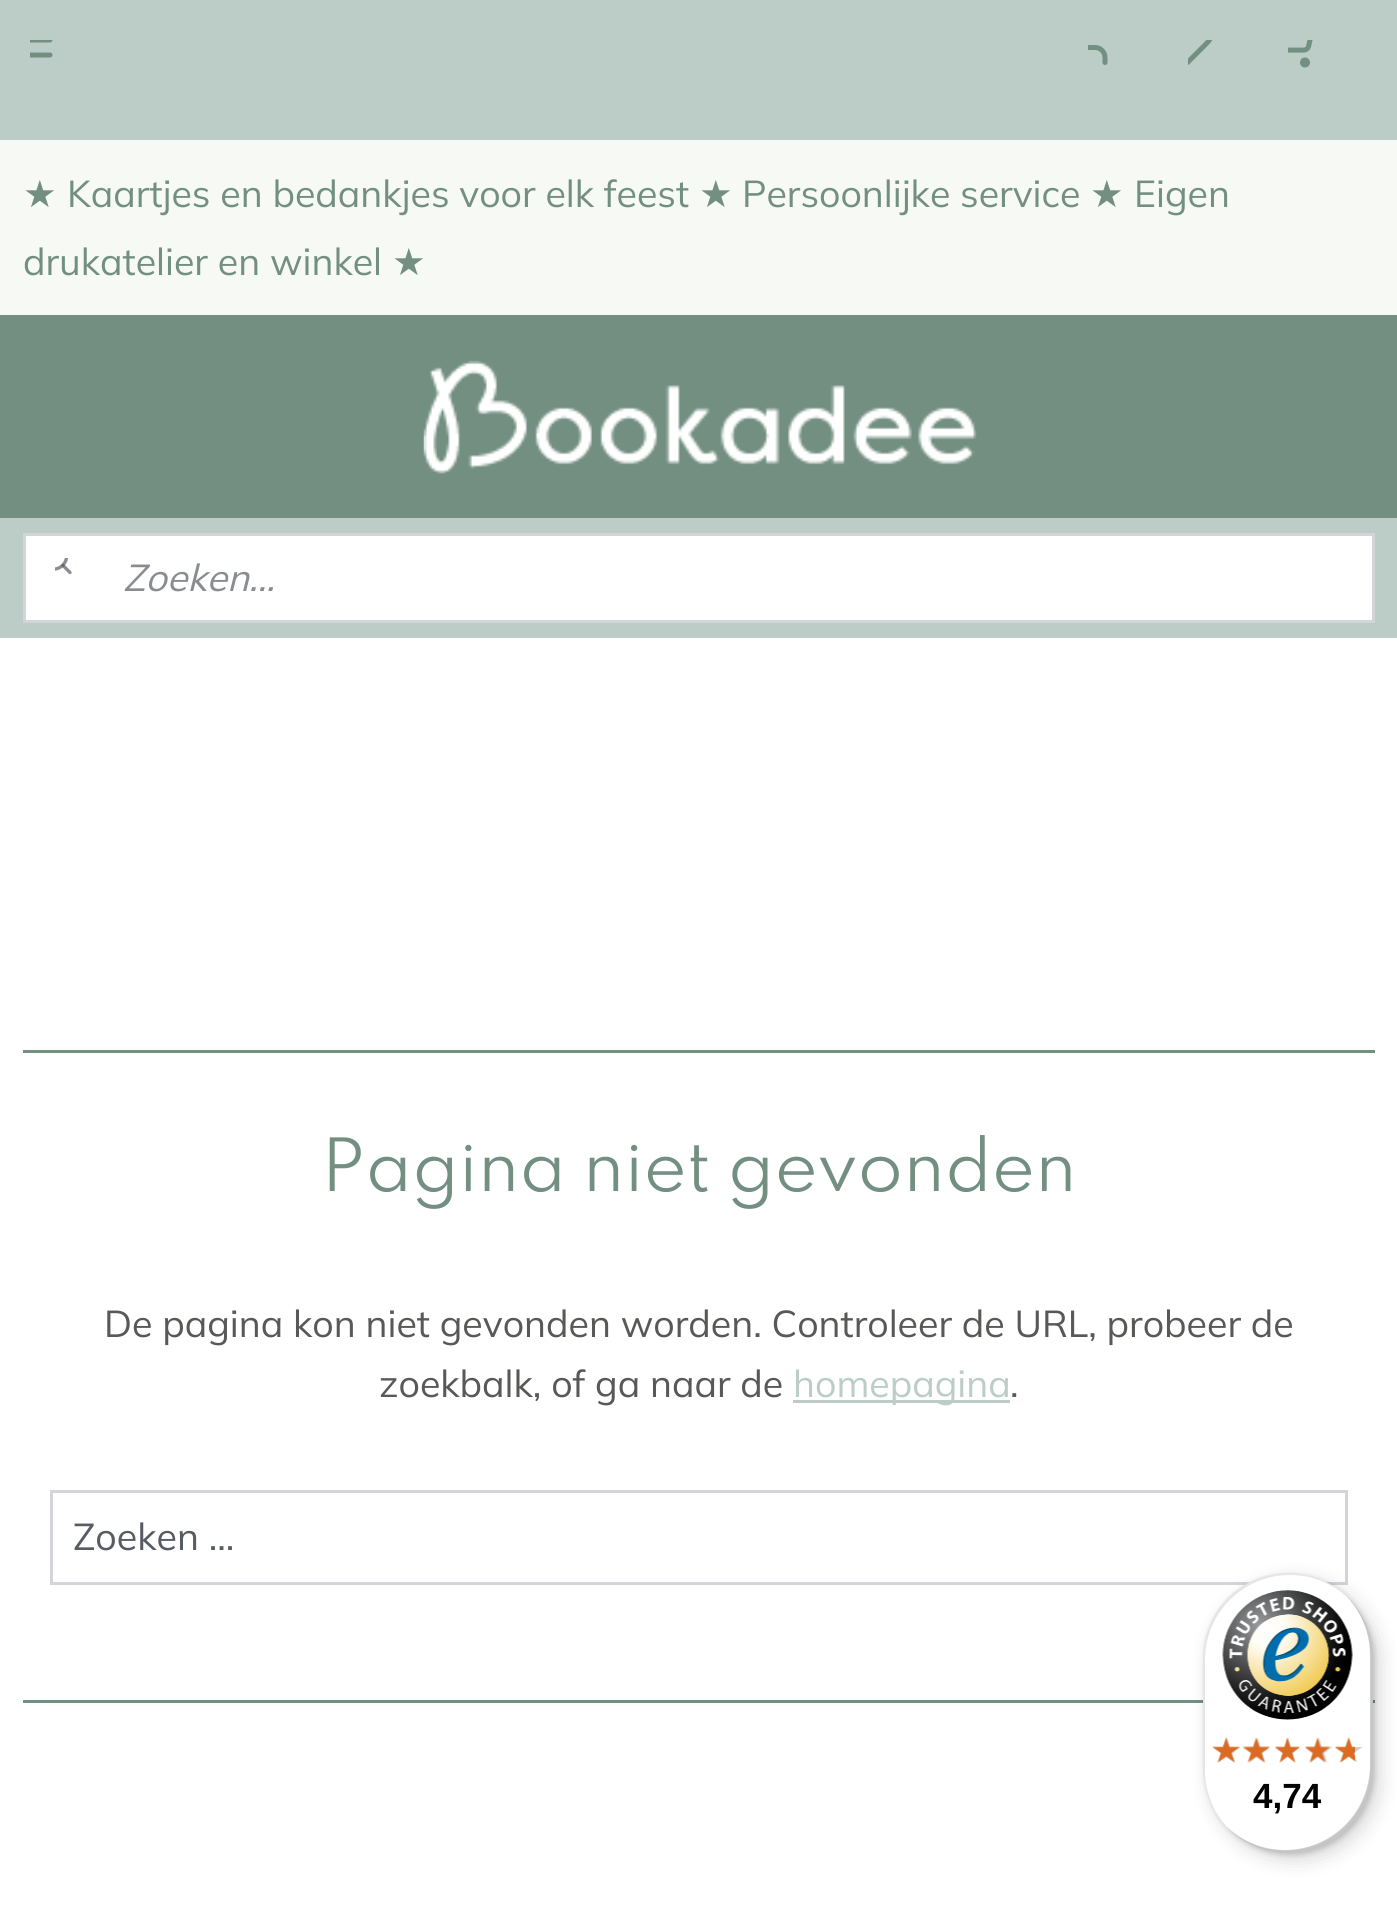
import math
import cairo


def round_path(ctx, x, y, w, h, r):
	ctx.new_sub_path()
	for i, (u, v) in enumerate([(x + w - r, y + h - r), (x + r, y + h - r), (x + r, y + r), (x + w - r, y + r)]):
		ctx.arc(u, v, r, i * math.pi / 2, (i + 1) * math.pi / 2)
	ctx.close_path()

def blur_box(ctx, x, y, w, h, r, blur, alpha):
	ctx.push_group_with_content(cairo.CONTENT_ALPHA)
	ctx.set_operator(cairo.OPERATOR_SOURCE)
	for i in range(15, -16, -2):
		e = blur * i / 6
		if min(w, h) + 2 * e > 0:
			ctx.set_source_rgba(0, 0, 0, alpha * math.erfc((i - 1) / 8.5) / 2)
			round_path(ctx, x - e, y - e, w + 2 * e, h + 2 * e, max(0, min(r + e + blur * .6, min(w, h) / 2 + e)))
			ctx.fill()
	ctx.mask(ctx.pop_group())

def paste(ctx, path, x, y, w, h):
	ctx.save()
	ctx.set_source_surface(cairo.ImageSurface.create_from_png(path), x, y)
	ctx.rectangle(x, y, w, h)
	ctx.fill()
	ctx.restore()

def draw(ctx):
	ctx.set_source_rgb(1, 1, 1)
	ctx.paint()
	ctx.set_source_rgb(0.733, 0.804, 0.776)
	ctx.rectangle(0, 0, 1397, 140)
	ctx.fill()
	paste(ctx, 'media/1.png', 30, 40, 23, 18)
	paste(ctx, 'media/2.png', 1088, 45, 20, 20)
	paste(ctx, 'media/3.png', 1188, 40, 25, 25)
	paste(ctx, 'media/4.png', 1288, 40, 25, 28)
	ctx.set_source_rgb(0.447, 0.561, 0.506)
	ctx.rectangle(0, 315, 1397, 203)
	ctx.fill()
	ctx.set_source_rgb(0.965, 0.98, 0.957)
	ctx.rectangle(0, 140, 1397, 175)
	ctx.fill()
	ctx.select_font_face('DejaVu Sans')
	ctx.set_font_size(37.5)
	ctx.set_source_rgb(0.447, 0.561, 0.506)
	ctx.move_to(23, 207)
	ctx.show_text('★')
	ctx.select_font_face('Mulish')
	ctx.move_to(67, 207)
	ctx.show_text('Kaartjes en bedankjes voor elk feest')
	ctx.select_font_face('DejaVu Sans')
	ctx.move_to(699, 207)
	ctx.show_text('★')
	ctx.select_font_face('Mulish')
	ctx.move_to(742, 207)
	ctx.show_text('Persoonlijke service')
	ctx.select_font_face('DejaVu Sans')
	ctx.move_to(1090, 207)
	ctx.show_text('★')
	ctx.select_font_face('Mulish')
	ctx.move_to(1134, 207)
	ctx.show_text('Eigen')
	ctx.move_to(23, 275)
	ctx.show_text('drukatelier en winkel')
	ctx.select_font_face('DejaVu Sans')
	ctx.move_to(392, 275)
	ctx.show_text('★')
	paste(ctx, 'media/5.png', 423, 360, 554, 114)
	ctx.set_source_rgb(0.733, 0.804, 0.776)
	ctx.rectangle(0, 518, 1397, 120)
	ctx.fill()
	ctx.set_source_rgb(1, 1, 1)
	ctx.rectangle(24.5, 534.5, 1349, 87)
	ctx.fill_preserve()
	ctx.set_source_rgb(0.827, 0.835, 0.851)
	ctx.set_line_width(3)
	ctx.stroke()
	paste(ctx, 'media/6.png', 55, 558, 17, 17)
	ctx.select_font_face('Mulish', cairo.FONT_SLANT_ITALIC)
	ctx.set_source_rgb(0.537, 0.549, 0.569)
	ctx.move_to(123, 591)
	ctx.show_text('Zoeken...')
	ctx.set_source_rgb(0.447, 0.561, 0.506)
	ctx.rectangle(23, 1050, 1352, 3)
	ctx.fill()
	ctx.rectangle(23, 1700, 1352, 3)
	ctx.fill()
	ctx.select_font_face('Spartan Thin')
	ctx.set_font_size(65)
	ctx.move_to(321, 1191)
	ctx.show_text('Pagina niet gevonden')
	ctx.select_font_face('Mulish')
	ctx.set_font_size(37.5)
	ctx.set_source_rgb(0.345, 0.345, 0.341)
	ctx.move_to(104, 1337)
	ctx.show_text('De pagina kon niet gevonden worden. Controleer de URL, probeer de')
	ctx.move_to(379, 1397)
	ctx.show_text('zoekbalk, of ga naar de')
	ctx.set_source_rgb(0.733, 0.804, 0.776)
	ctx.rectangle(793, 1400, 217, 3)
	ctx.fill()
	ctx.move_to(793, 1397)
	ctx.show_text('homepagina')
	ctx.set_source_rgb(0.345, 0.345, 0.341)
	ctx.move_to(1010, 1397)
	ctx.show_text('.')
	ctx.rectangle(51.5, 1491.5, 1295, 92)
	ctx.set_source_rgb(0.827, 0.835, 0.851)
	ctx.stroke()
	ctx.set_source_rgb(0.341, 0.357, 0.384)
	ctx.move_to(73, 1550)
	ctx.show_text('Zoeken ...')
	ctx.set_source_rgb(0, 0, 0)
	blur_box(ctx, 1210, 1580, 170, 280, 85, 10, 0.15)
	blur_box(ctx, 1205, 1575, 170, 280, 85, 2.5, 0.15)
	ctx.set_source_rgb(1, 1, 1)
	round_path(ctx, 1203, 1573, 170, 280, 85)
	ctx.fill()
	ctx.set_source_rgba(0, 0, 0, 0.1)
	ctx.new_path()
	ctx.move_to(1290, 1575)
	ctx.curve_to(1313, 1575, 1333, 1584, 1348, 1598)
	ctx.curve_to(1333, 1583, 1312, 1573, 1288, 1573)
	ctx.curve_to(1241, 1573, 1203, 1611, 1203, 1658)
	ctx.line_to(1203, 1768)
	ctx.curve_to(1203, 1792, 1213, 1813, 1228, 1828)
	ctx.curve_to(1214, 1813, 1205, 1793, 1205, 1770)
	ctx.line_to(1205, 1660)
	ctx.curve_to(1205, 1613, 1243, 1575, 1290, 1575)
	ctx.close_path()
	ctx.fill()
	ctx.set_source_rgba(0, 0, 0, 0.2)
	ctx.new_path()
	ctx.move_to(1227, 1827)
	ctx.curve_to(1242, 1843, 1264, 1853, 1288, 1853)
	ctx.curve_to(1335, 1853, 1373, 1815, 1373, 1768)
	ctx.line_to(1373, 1658)
	ctx.curve_to(1373, 1634, 1363, 1612, 1347, 1597)
	ctx.curve_to(1361, 1612, 1370, 1632, 1370, 1655)
	ctx.line_to(1370, 1765)
	ctx.curve_to(1370, 1812, 1332, 1850, 1285, 1850)
	ctx.curve_to(1262, 1850, 1242, 1841, 1227, 1827)
	ctx.close_path()
	ctx.fill()
	ctx.set_source_rgba(0.196, 0.196, 0.196, 0.2)
	ctx.new_path()
	ctx.move_to(1228, 1828)
	ctx.curve_to(1243, 1843, 1264, 1853, 1288, 1853)
	ctx.curve_to(1335, 1853, 1373, 1815, 1373, 1768)
	ctx.line_to(1373, 1658)
	ctx.curve_to(1373, 1634, 1363, 1613, 1348, 1598)
	ctx.curve_to(1362, 1613, 1371, 1633, 1371, 1656)
	ctx.line_to(1371, 1766)
	ctx.curve_to(1371, 1813, 1333, 1851, 1286, 1851)
	ctx.curve_to(1263, 1851, 1243, 1842, 1228, 1828)
	ctx.close_path()
	ctx.fill()
	ctx.set_source_rgba(1, 1, 1, 0.3)
	ctx.new_path()
	ctx.move_to(1228, 1828)
	ctx.curve_to(1243, 1843, 1264, 1853, 1288, 1853)
	ctx.curve_to(1335, 1853, 1373, 1815, 1373, 1768)
	ctx.line_to(1373, 1658)
	ctx.curve_to(1373, 1634, 1363, 1613, 1348, 1598)
	ctx.curve_to(1362, 1613, 1371, 1633, 1371, 1656)
	ctx.line_to(1371, 1766)
	ctx.curve_to(1371, 1813, 1333, 1851, 1286, 1851)
	ctx.curve_to(1263, 1851, 1243, 1842, 1228, 1828)
	ctx.close_path()
	ctx.fill()
	paste(ctx, 'media/7.png', 1222, 1590, 131, 130)
	paste(ctx, 'media/8.png', 1212, 1738, 28, 24)
	paste(ctx, 'media/9.png', 1245, 1737, 25, 26)
	paste(ctx, 'media/10.png', 1275, 1738, 25, 24)
	paste(ctx, 'media/11.png', 1305, 1737, 28, 26)
	paste(ctx, 'media/12.png', 1335, 1738, 28, 24)
	paste(ctx, 'media/13.png', 1212, 1737, 28, 26)
	paste(ctx, 'media/14.png', 1242, 1737, 28, 26)
	paste(ctx, 'media/15.png', 1275, 1737, 25, 26)
	paste(ctx, 'media/16.png', 1305, 1737, 25, 26)
	paste(ctx, 'media/17.png', 1335, 1737, 20, 26)
	ctx.select_font_face('Liberation Sans', cairo.FONT_SLANT_NORMAL, cairo.FONT_WEIGHT_BOLD)
	ctx.set_font_size(35)
	ctx.set_source_rgb(0, 0, 0)
	ctx.move_to(1253, 1808)
	ctx.show_text('4,74')


surface = cairo.ImageSurface(cairo.FORMAT_RGB24, 1397, 1927)
ctx = cairo.Context(surface)
options = cairo.FontOptions()
options.set_hint_metrics(cairo.HINT_METRICS_OFF)
options.set_hint_style(cairo.HINT_STYLE_NONE)
ctx.set_font_options(options)
ctx.set_miter_limit(4)
draw(ctx)
surface.write_to_png('image.png')
